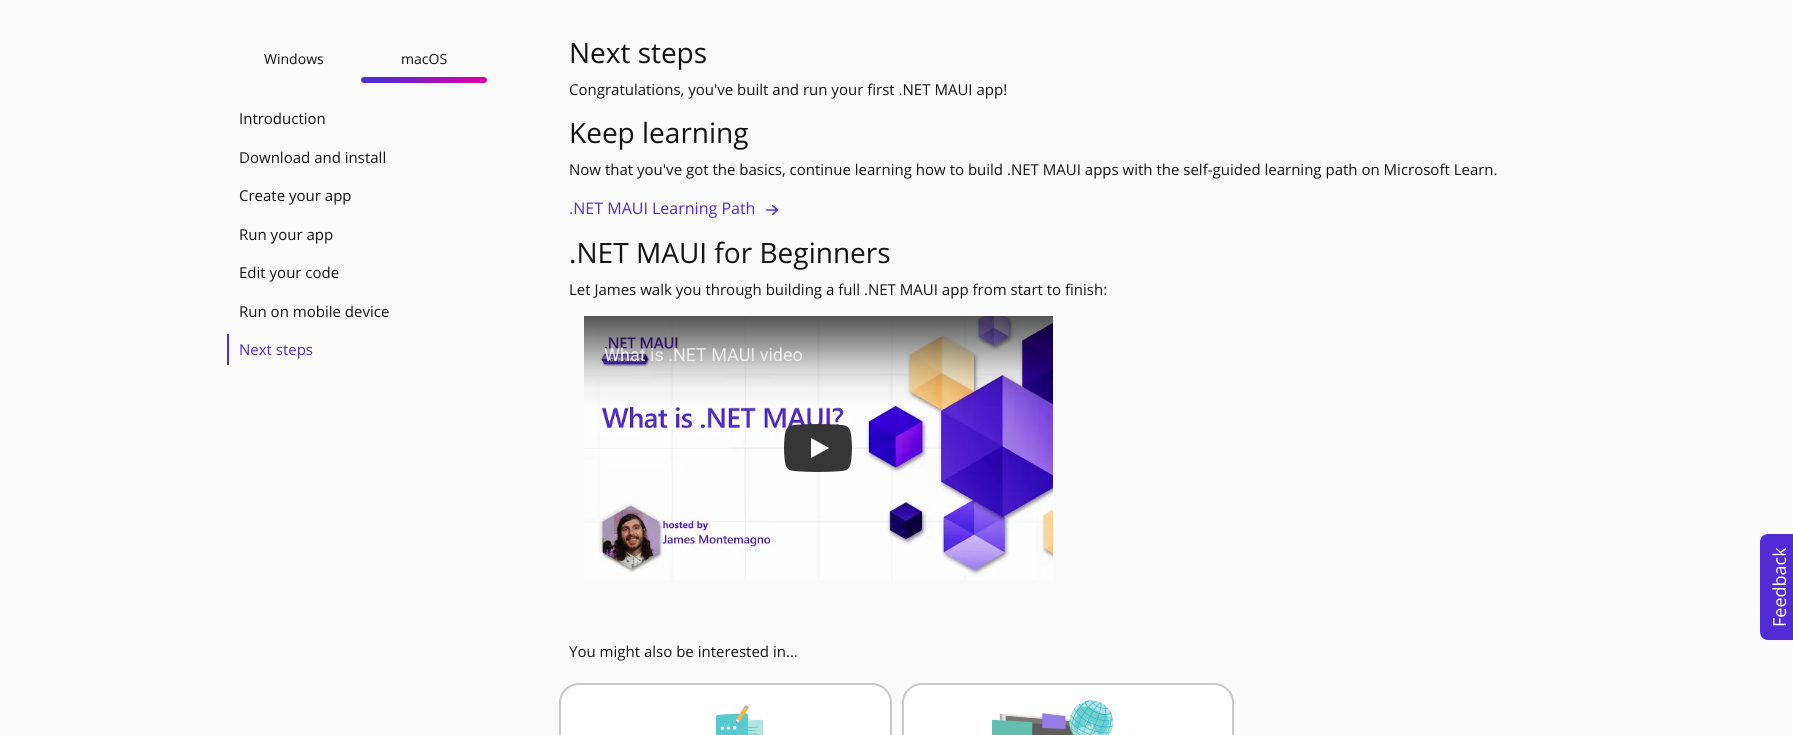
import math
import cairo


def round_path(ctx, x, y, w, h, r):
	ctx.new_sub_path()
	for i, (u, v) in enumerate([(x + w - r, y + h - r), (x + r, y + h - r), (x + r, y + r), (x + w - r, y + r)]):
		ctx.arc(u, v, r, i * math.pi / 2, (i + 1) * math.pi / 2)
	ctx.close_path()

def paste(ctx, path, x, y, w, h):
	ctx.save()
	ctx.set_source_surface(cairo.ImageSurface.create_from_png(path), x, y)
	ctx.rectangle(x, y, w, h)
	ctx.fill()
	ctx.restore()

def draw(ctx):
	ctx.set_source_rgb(0.98, 0.98, 0.98)
	ctx.paint()
	ctx.select_font_face('Open Sans')
	ctx.set_font_size(14)
	ctx.set_source_rgb(0.078, 0.078, 0.078)
	ctx.move_to(264, 64)
	ctx.show_text('Windows')
	ctx.move_to(401, 64)
	ctx.show_text('macOS')
	gradient = cairo.LinearGradient(384, 48, 464, 112)
	gradient.add_color_stop_rgba(0.14, 0.318, 0.169, 0.831, 1)
	gradient.add_color_stop_rgba(0.89, 0.839, 0, 0.667, 1)
	ctx.set_source(gradient)
	round_path(ctx, 361, 77, 126, 6, 3)
	ctx.fill()
	ctx.set_font_size(15)
	ctx.set_source_rgb(0.078, 0.078, 0.078)
	for x, y, s in [
		(239, 124, 'Introduction'),
		(239, 163, 'Download and install'),
		(239, 201, 'Create your app'),
		(239, 240, 'Run your app'),
		(239, 278, 'Edit your code'),
		(239, 317, 'Run on mobile device'),
	]:
		ctx.move_to(x, y)
		ctx.show_text(s)
	ctx.set_source_rgb(0.318, 0.169, 0.831)
	ctx.rectangle(227, 334, 2, 31)
	ctx.fill()
	ctx.move_to(239, 355)
	ctx.show_text('Next steps')
	ctx.set_font_size(28)
	ctx.set_source_rgb(0.078, 0.078, 0.078)
	ctx.move_to(569, 63)
	ctx.show_text('Next steps')
	ctx.set_font_size(15)
	ctx.move_to(569, 95)
	ctx.show_text('Congratulations, you\'ve built and run your first .NET MAUI app!')
	ctx.set_font_size(28)
	ctx.move_to(569, 143)
	ctx.show_text('Keep learning')
	ctx.set_font_size(15)
	ctx.move_to(569, 175)
	ctx.show_text('Now that you\'ve got the basics, continue learning how to build .NET MAUI apps with the self-guided learning path on Microsoft Learn.')
	ctx.set_font_size(16)
	ctx.set_source_rgb(0.318, 0.169, 0.831)
	ctx.move_to(569, 214)
	ctx.show_text('.NET MAUI Learning Path')
	paste(ctx, 'media/1.png', 766, 205, 13, 10)
	ctx.set_font_size(28)
	ctx.set_source_rgb(0.078, 0.078, 0.078)
	ctx.move_to(569, 263)
	ctx.show_text('.NET MAUI for Beginners')
	ctx.set_font_size(15)
	ctx.move_to(569, 295)
	ctx.show_text('Let James walk you through building a full .NET MAUI app from start to finish:')
	paste(ctx, 'media/2.png', 584, 316, 469, 264)
	ctx.select_font_face('Roboto')
	ctx.set_font_size(18)
	ctx.set_source_rgb(0.929, 0.929, 0.929)
	ctx.move_to(604, 361)
	ctx.show_text('What is .NET MAUI video')
	paste(ctx, 'media/3.png', 784, 424, 68, 48)
	ctx.select_font_face('Open Sans')
	ctx.set_font_size(15)
	ctx.set_source_rgb(0.078, 0.078, 0.078)
	ctx.move_to(569, 657)
	ctx.show_text('You might also be interested in...')
	round_path(ctx, 560, 684, 331, 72, 19)
	ctx.set_source_rgb(0.784, 0.784, 0.784)
	ctx.stroke()
	ctx.save()
	round_path(ctx, 561, 685, 329, 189, 18)
	ctx.clip()
	ctx.set_source_rgb(1, 1, 1)
	ctx.new_path()
	ctx.move_to(581, 685)
	ctx.line_to(870, 685)
	ctx.curve_to(881, 685, 890, 694, 890, 705)
	ctx.line_to(890, 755)
	ctx.line_to(561, 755)
	ctx.line_to(561, 705)
	ctx.curve_to(561, 694, 570, 685, 581, 685)
	ctx.close_path()
	ctx.fill()
	ctx.restore()
	paste(ctx, 'media/4.png', 715, 705, 49, 30)
	round_path(ctx, 903, 684, 330, 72, 19)
	ctx.stroke()
	ctx.save()
	round_path(ctx, 904, 685, 328, 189, 18)
	ctx.clip()
	ctx.set_source_rgb(1, 1, 1)
	ctx.new_path()
	ctx.move_to(924, 685)
	ctx.line_to(1212, 685)
	ctx.curve_to(1223, 685, 1232, 694, 1232, 705)
	ctx.line_to(1232, 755)
	ctx.line_to(904, 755)
	ctx.line_to(904, 705)
	ctx.curve_to(904, 694, 913, 685, 924, 685)
	ctx.close_path()
	ctx.fill()
	ctx.restore()
	paste(ctx, 'media/5.png', 992, 700, 142, 35)
	ctx.set_source_rgb(0.318, 0.169, 0.831)
	ctx.new_path()
	ctx.move_to(1760, 632)
	ctx.line_to(1760, 542)
	ctx.curve_to(1760, 537, 1764, 534, 1768, 534)
	ctx.line_to(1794, 534)
	ctx.curve_to(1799, 534, 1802, 537, 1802, 542)
	ctx.line_to(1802, 632)
	ctx.curve_to(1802, 637, 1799, 640, 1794, 640)
	ctx.line_to(1768, 640)
	ctx.curve_to(1764, 640, 1760, 637, 1760, 632)
	ctx.close_path()
	ctx.fill()
	ctx.set_font_size(18)
	ctx.set_source_rgb(1, 1, 1)
	ctx.save()
	ctx.translate(1786, 627)
	ctx.rotate(-90 * math.pi / 180)
	ctx.move_to(0, 0)
	ctx.show_text('Feedback')
	ctx.restore()


surface = cairo.ImageSurface(cairo.FORMAT_RGB24, 1793, 735)
ctx = cairo.Context(surface)
options = cairo.FontOptions()
options.set_hint_metrics(cairo.HINT_METRICS_OFF)
options.set_hint_style(cairo.HINT_STYLE_NONE)
ctx.set_font_options(options)
ctx.set_miter_limit(4)
draw(ctx)
surface.write_to_png('image.png')
